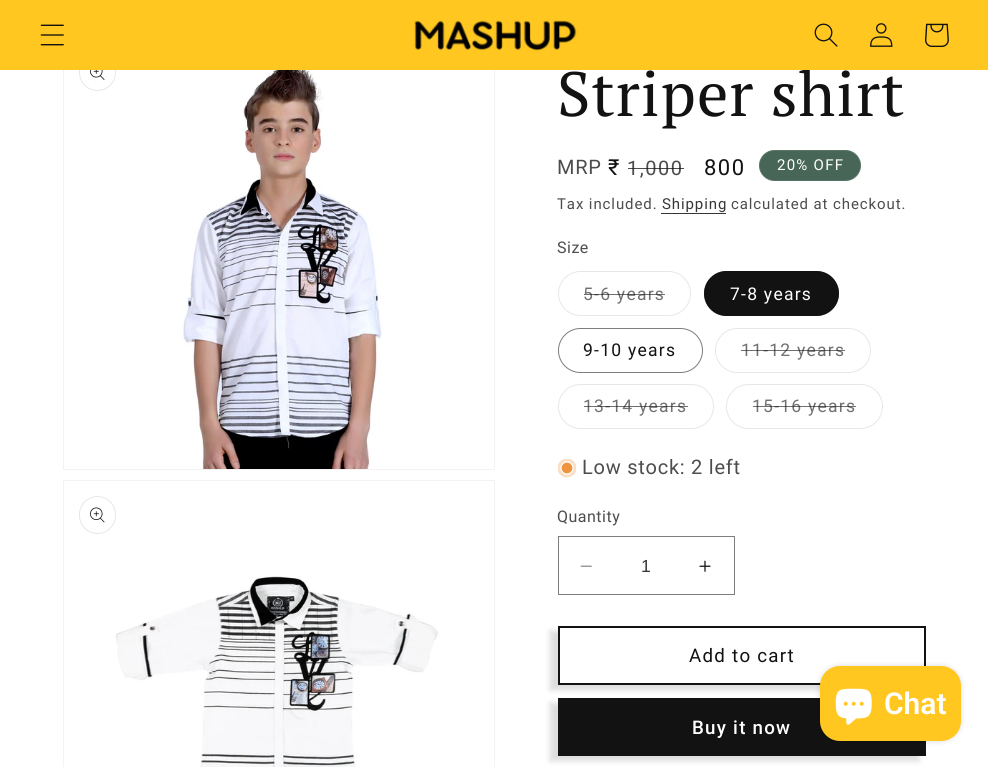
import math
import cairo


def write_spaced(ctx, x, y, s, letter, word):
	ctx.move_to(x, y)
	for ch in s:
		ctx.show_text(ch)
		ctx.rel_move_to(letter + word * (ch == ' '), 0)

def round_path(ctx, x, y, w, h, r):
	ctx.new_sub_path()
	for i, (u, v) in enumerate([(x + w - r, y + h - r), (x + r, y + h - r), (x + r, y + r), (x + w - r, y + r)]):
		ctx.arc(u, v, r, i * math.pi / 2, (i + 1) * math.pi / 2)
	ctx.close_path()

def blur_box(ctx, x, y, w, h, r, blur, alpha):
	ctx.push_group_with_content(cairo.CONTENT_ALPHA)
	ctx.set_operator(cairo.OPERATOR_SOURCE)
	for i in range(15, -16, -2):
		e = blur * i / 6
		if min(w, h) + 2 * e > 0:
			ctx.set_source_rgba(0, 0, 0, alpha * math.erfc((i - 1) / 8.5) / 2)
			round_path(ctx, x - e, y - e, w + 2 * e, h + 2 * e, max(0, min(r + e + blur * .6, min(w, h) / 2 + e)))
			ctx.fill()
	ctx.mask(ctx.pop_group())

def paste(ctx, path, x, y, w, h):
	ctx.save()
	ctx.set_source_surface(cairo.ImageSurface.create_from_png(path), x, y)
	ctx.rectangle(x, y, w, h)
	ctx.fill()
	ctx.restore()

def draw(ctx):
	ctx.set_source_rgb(1, 1, 1)
	ctx.paint()
	ctx.rectangle(63.5, 38.5, 431, 431)
	ctx.set_source_rgb(0.953, 0.953, 0.953)
	ctx.set_line_width(1)
	ctx.stroke()
	ctx.arc(97.5, 72.5, 18, 0, 2 * math.pi)
	ctx.set_source_rgb(0.906, 0.906, 0.906)
	ctx.stroke()
	ctx.select_font_face('PT Serif')
	ctx.set_font_size(62.5)
	ctx.set_source_rgb(0.071, 0.071, 0.071)
	write_spaced(ctx, 557, 116, 'Striper shirt', 1, 0)
	ctx.set_source_rgb(1, 0.78, 0.125)
	ctx.rectangle(0, 0, 988, 70)
	ctx.fill()
	paste(ctx, 'media/1.png', 40, 24, 24, 22)
	paste(ctx, 'media/2.png', 414, 20, 163, 31)
	paste(ctx, 'media/3.png', 814, 23, 24, 24)
	paste(ctx, 'media/4.png', 870, 23, 23, 24)
	paste(ctx, 'media/5.png', 925, 23, 24, 24)
	paste(ctx, 'media/6.png', 90, 70, 15, 10)
	paste(ctx, 'media/7.png', 182, 70, 200, 399)
	ctx.rectangle(63.5, 480.5, 431, 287)
	ctx.set_source_rgb(0.953, 0.953, 0.953)
	ctx.stroke()
	round_path(ctx, 79.5, 496.5, 36, 37, 18)
	ctx.set_source_rgb(0.906, 0.906, 0.906)
	ctx.stroke()
	paste(ctx, 'media/8.png', 90, 507, 15, 16)
	paste(ctx, 'media/9.png', 115, 576, 323, 191)
	ctx.select_font_face('Roboto')
	ctx.set_font_size(20)
	ctx.set_source_rgb(0.302, 0.302, 0.302)
	write_spaced(ctx, 557, 174, 'MRP', 0.75, 0)
	ctx.set_font_size(22)
	ctx.set_source_rgb(0.071, 0.071, 0.071)
	write_spaced(ctx, 608, 175, '₹', 1.5, 0)
	ctx.set_font_size(20)
	ctx.set_source_rgb(0.302, 0.302, 0.302)
	write_spaced(ctx, 627, 175, '1,000', 1.5, 0)
	ctx.set_source_rgba(0.071, 0.071, 0.071, 0.75)
	ctx.rectangle(628, 168, 56, 1)
	ctx.fill()
	ctx.set_font_size(22)
	ctx.set_source_rgb(0.071, 0.071, 0.071)
	write_spaced(ctx, 704, 175, '800', 1.5, 0)
	ctx.set_source_rgb(0.278, 0.4, 0.341)
	round_path(ctx, 759, 150, 102, 31, 15.5)
	ctx.fill()
	round_path(ctx, 759.5, 150.5, 101, 30, 15)
	ctx.set_source_rgba(1, 1, 1, 0.1)
	ctx.stroke()
	ctx.set_font_size(15)
	ctx.set_source_rgb(1, 1, 1)
	write_spaced(ctx, 777, 170, '20% OFF', 1.25, 0)
	ctx.set_source_rgb(0.302, 0.302, 0.302)
	write_spaced(ctx, 557, 209, 'Tax included.', 0.9, 0)
	ctx.set_source_rgb(0.212, 0.212, 0.212)
	write_spaced(ctx, 662, 209, 'Shipping', 0.9, 0)
	ctx.rectangle(661, 213, 65, 1)
	ctx.fill()
	ctx.set_source_rgb(0.302, 0.302, 0.302)
	write_spaced(ctx, 731, 209, 'calculated at checkout.', 0.9, 0)
	ctx.set_font_size(16)
	write_spaced(ctx, 557, 253, 'Size', 0.5, 0)
	round_path(ctx, 558.5, 271.5, 132, 44, 22)
	ctx.set_source_rgb(0.906, 0.906, 0.906)
	ctx.stroke()
	ctx.set_font_size(17.5)
	ctx.set_source_rgb(0.443, 0.443, 0.443)
	write_spaced(ctx, 583, 300, '5-6 years', 1.25, 0)
	ctx.set_source_rgba(0.071, 0.071, 0.071, 0.6)
	ctx.rectangle(584, 294, 81, 1)
	ctx.fill()
	ctx.set_source_rgb(0.071, 0.071, 0.071)
	round_path(ctx, 704, 271, 135, 45, 22.5)
	ctx.fill()
	round_path(ctx, 704.5, 271.5, 134, 44, 22)
	ctx.set_source_rgba(0.071, 0.071, 0.071, 0.55)
	ctx.stroke()
	ctx.set_source_rgb(1, 1, 1)
	write_spaced(ctx, 730, 300, '7-8 years', 1.25, 0)
	round_path(ctx, 558.5, 328.5, 144, 44, 22)
	ctx.set_source_rgb(0.49, 0.49, 0.49)
	ctx.stroke()
	ctx.set_source_rgb(0.071, 0.071, 0.071)
	write_spaced(ctx, 583, 356, '9-10 years', 1.25, 0)
	round_path(ctx, 715.5, 328.5, 155, 44, 22)
	ctx.set_source_rgb(0.906, 0.906, 0.906)
	ctx.stroke()
	ctx.set_source_rgb(0.443, 0.443, 0.443)
	write_spaced(ctx, 741, 356, '11-12 years', 1.25, 0)
	ctx.set_source_rgba(0.071, 0.071, 0.071, 0.6)
	ctx.rectangle(741, 350, 104, 1)
	ctx.fill()
	round_path(ctx, 558.5, 384.5, 155, 44, 22)
	ctx.set_source_rgb(0.906, 0.906, 0.906)
	ctx.stroke()
	ctx.set_source_rgb(0.443, 0.443, 0.443)
	write_spaced(ctx, 583, 412, '13-14 years', 1.25, 0)
	ctx.set_source_rgba(0.071, 0.071, 0.071, 0.6)
	ctx.rectangle(584, 406, 104, 1)
	ctx.fill()
	round_path(ctx, 726.5, 384.5, 156, 44, 22)
	ctx.set_source_rgb(0.906, 0.906, 0.906)
	ctx.stroke()
	ctx.set_source_rgb(0.443, 0.443, 0.443)
	write_spaced(ctx, 752, 412, '15-16 years', 1.25, 0)
	ctx.set_source_rgba(0.071, 0.071, 0.071, 0.6)
	ctx.rectangle(753, 406, 103, 1)
	ctx.fill()
	ctx.save()
	ctx.rectangle(558, 459, 18, 19)
	ctx.clip()
	ctx.set_source_rgb(0.98, 0.875, 0.776)
	ctx.arc(567, 468, 9.5, 0, 2 * math.pi)
	ctx.fill()
	ctx.restore()
	ctx.set_source_rgb(0.933, 0.58, 0.255)
	ctx.arc(567, 468, 6, 0, 2 * math.pi)
	ctx.fill_preserve()
	ctx.set_source_rgb(1, 1, 1)
	ctx.set_line_width(1.2)
	ctx.stroke()
	ctx.set_font_size(20)
	ctx.set_source_rgb(0.302, 0.302, 0.302)
	write_spaced(ctx, 582, 474, 'Low stock: 2 left', 0.75, 0)
	ctx.set_font_size(16)
	write_spaced(ctx, 557, 522, 'Quantity', 0.5, 0)
	paste(ctx, 'media/10.png', 580, 565, 12, 2)
	paste(ctx, 'media/11.png', 699, 560, 12, 12)
	ctx.rectangle(558.5, 536.5, 176, 58)
	ctx.set_source_rgb(0.49, 0.49, 0.49)
	ctx.set_line_width(1)
	ctx.stroke()
	ctx.select_font_face('Liberation Sans')
	ctx.set_font_size(17.5)
	ctx.set_source_rgb(0.212, 0.212, 0.212)
	ctx.move_to(641, 572)
	ctx.show_text('1')
	ctx.save()
	ctx.set_fill_rule(cairo.FILL_RULE_EVEN_ODD)
	ctx.new_path()
	ctx.move_to(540, 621)
	ctx.line_to(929, 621)
	ctx.line_to(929, 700)
	ctx.line_to(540, 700)
	ctx.close_path()
	ctx.move_to(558, 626)
	ctx.line_to(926, 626)
	ctx.line_to(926, 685)
	ctx.line_to(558, 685)
	ctx.close_path()
	ctx.clip()
	ctx.set_source_rgb(0.071, 0.071, 0.071)
	blur_box(ctx, 550, 631, 369, 59, 0, 3, 0.15)
	ctx.restore()
	ctx.rectangle(559, 627, 366, 57)
	ctx.set_source_rgb(0.071, 0.071, 0.071)
	ctx.set_line_width(2)
	ctx.stroke()
	ctx.select_font_face('Roboto')
	ctx.set_font_size(18.75)
	write_spaced(ctx, 689, 662, 'Add to cart', 1.25, 0)
	ctx.set_source_rgb(0.071, 0.071, 0.071)
	blur_box(ctx, 550, 703, 369, 58, 0, 3, 0.15)
	ctx.set_source_rgb(0.071, 0.071, 0.071)
	ctx.rectangle(558, 698, 368, 58)
	ctx.fill()
	ctx.select_font_face('Roboto Medium')
	ctx.set_source_rgb(1, 1, 1)
	write_spaced(ctx, 692, 734, 'Buy it now', 1.25, 0)
	ctx.set_source_rgb(0, 0, 0)
	blur_box(ctx, 820, 666, 141, 75, 20, 3, 0.15)
	ctx.set_source_rgb(1, 0.78, 0.125)
	round_path(ctx, 820, 666, 141, 75, 20)
	ctx.fill()
	paste(ctx, 'media/12.png', 835, 688, 37, 37)
	ctx.select_font_face('Roboto SemiBold')
	ctx.set_font_size(30)
	ctx.set_source_rgb(1, 1, 1)
	ctx.move_to(884, 714)
	ctx.show_text('Chat')


surface = cairo.ImageSurface(cairo.FORMAT_RGB24, 988, 767)
ctx = cairo.Context(surface)
options = cairo.FontOptions()
options.set_hint_metrics(cairo.HINT_METRICS_OFF)
options.set_hint_style(cairo.HINT_STYLE_NONE)
ctx.set_font_options(options)
ctx.set_miter_limit(4)
draw(ctx)
surface.write_to_png('image.png')
